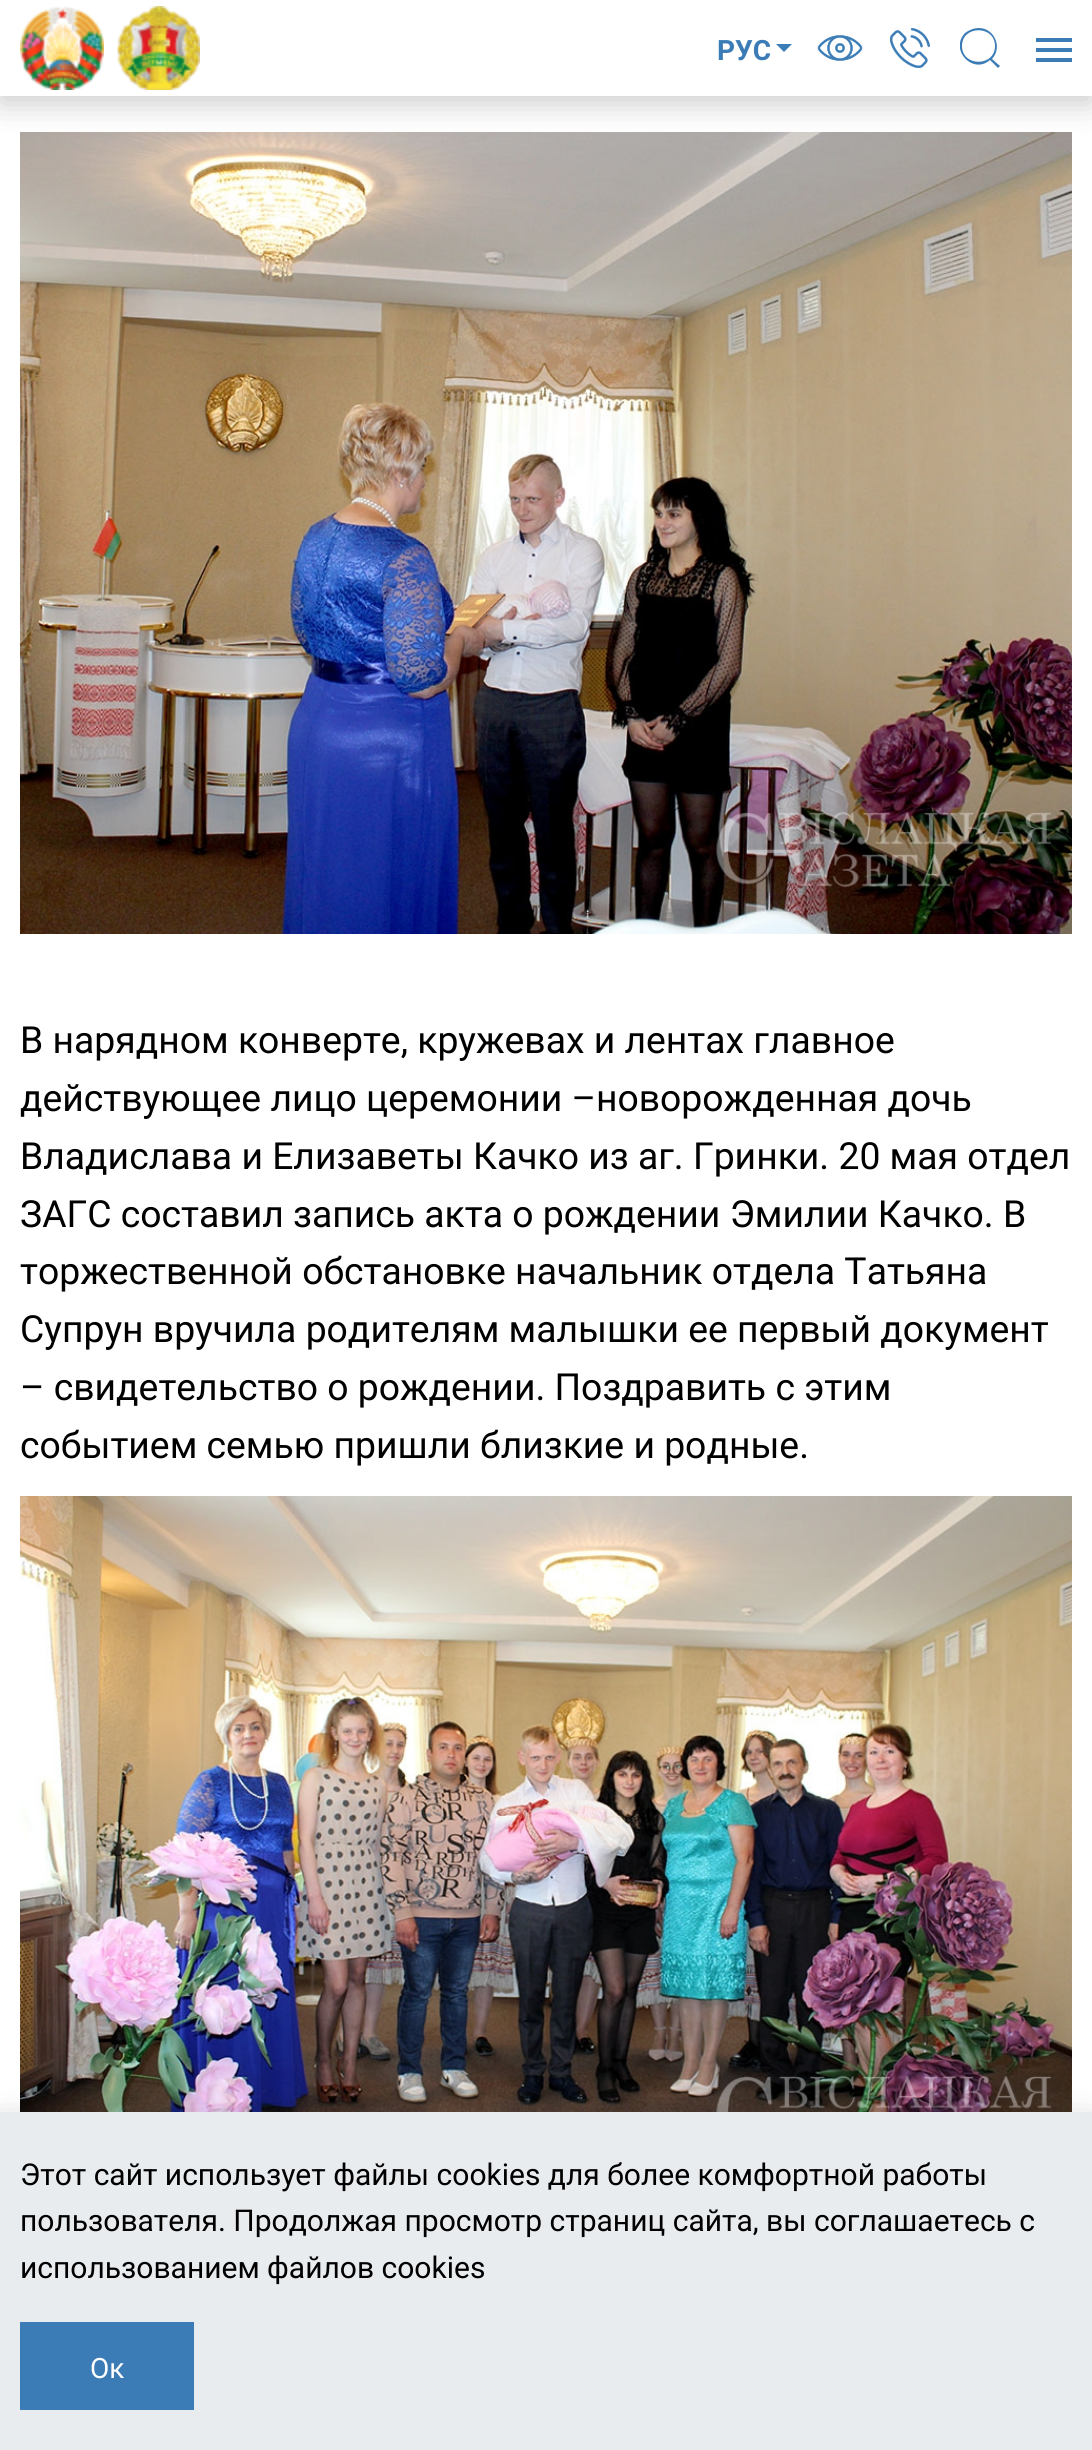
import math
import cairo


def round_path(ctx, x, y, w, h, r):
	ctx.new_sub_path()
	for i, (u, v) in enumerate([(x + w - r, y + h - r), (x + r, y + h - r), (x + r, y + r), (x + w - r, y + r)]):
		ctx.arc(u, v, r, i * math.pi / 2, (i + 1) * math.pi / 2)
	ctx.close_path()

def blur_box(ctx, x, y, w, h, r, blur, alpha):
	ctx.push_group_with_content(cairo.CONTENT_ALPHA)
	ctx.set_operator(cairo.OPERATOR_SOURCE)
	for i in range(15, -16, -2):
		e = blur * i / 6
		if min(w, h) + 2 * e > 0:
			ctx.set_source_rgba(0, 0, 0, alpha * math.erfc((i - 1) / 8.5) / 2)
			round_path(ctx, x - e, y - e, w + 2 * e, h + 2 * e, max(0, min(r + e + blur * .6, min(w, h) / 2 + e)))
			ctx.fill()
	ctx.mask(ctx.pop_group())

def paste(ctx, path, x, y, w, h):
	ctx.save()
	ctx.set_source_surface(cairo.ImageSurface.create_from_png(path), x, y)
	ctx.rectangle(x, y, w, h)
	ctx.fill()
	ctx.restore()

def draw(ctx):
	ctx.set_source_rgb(1, 1, 1)
	ctx.paint()
	paste(ctx, 'media/5.png', 20, 132, 1052, 802)
	ctx.set_source_rgb(0, 0, 0)
	blur_box(ctx, 0, 8, 1092, 96, 0, 15, 0.2)
	ctx.set_source_rgb(1, 1, 1)
	ctx.rectangle(0, 0, 1092, 96)
	ctx.fill()
	paste(ctx, 'media/1.png', 20, 6, 84, 84)
	paste(ctx, 'media/2.png', 116, 6, 84, 84)
	ctx.select_font_face('Roboto', cairo.FONT_SLANT_NORMAL, cairo.FONT_WEIGHT_BOLD)
	ctx.set_font_size(28)
	ctx.set_source_rgb(0.231, 0.486, 0.714)
	ctx.move_to(717, 60)
	ctx.show_text('РУС')
	ctx.new_path()
	ctx.move_to(776, 44)
	ctx.line_to(792, 44)
	ctx.line_to(784, 52)
	ctx.close_path()
	ctx.fill()
	paste(ctx, 'media/3.png', 817, 35, 46, 26)
	paste(ctx, 'media/4.png', 890, 28, 40, 40)
	ctx.save()
	ctx.rectangle(960, 28, 40, 40)
	ctx.clip()
	ctx.set_fill_rule(cairo.FILL_RULE_EVEN_ODD)
	ctx.new_path()
	ctx.move_to(979, 28)
	ctx.curve_to(974, 28, 969, 30, 965, 33)
	ctx.curve_to(949, 50, 973, 75, 990, 60)
	ctx.line_to(998, 68)
	ctx.line_to(1000, 66)
	ctx.line_to(992, 59)
	ctx.curve_to(1003, 47, 994, 28, 979, 28)
	ctx.close_path()
	ctx.move_to(962, 46)
	ctx.curve_to(962, 25, 995, 25, 995, 46)
	ctx.curve_to(995, 67, 962, 67, 962, 46)
	ctx.close_path()
	ctx.fill()
	ctx.restore()
	ctx.rectangle(1036, 48, 36, 4)
	ctx.rectangle(1036, 38, 36, 4)
	ctx.rectangle(1036, 58, 36, 4)
	ctx.fill()
	ctx.select_font_face('Roboto')
	ctx.set_font_size(37.3)
	ctx.set_source_rgb(0, 0, 0)
	for x, y, s in [
		(20, 1053, 'В нарядном конверте, кружевах и лентах главное'),
		(20, 1111, 'действующее лицо церемонии –новорожденная дочь'),
		(20, 1169, 'Владислава и Елизаветы Качко из аг. Гринки. 20 мая отдел'),
		(20, 1227, 'ЗАГС составил запись акта о рождении Эмилии Качко. В'),
		(20, 1284, 'торжественной обстановке начальник отдела Татьяна'),
		(20, 1342, 'Супрун вручила родителям малышки ее первый документ'),
		(20, 1400, '– свидетельство о рождении. Поздравить с этим'),
		(20, 1458, 'событием семью пришли близкие и родные.'),
	]:
		ctx.move_to(x, y)
		ctx.show_text(s)
	paste(ctx, 'media/6.png', 20, 1496, 1052, 616)
	ctx.set_source_rgb(0, 0, 0)
	blur_box(ctx, 0, 2120, 1092, 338, 0, 15, 0.2)
	ctx.set_source_rgb(0.914, 0.925, 0.937)
	ctx.rectangle(0, 2112, 1092, 338)
	ctx.fill()
	ctx.set_font_size(30)
	ctx.set_source_rgb(0, 0, 0)
	for x, y, s in [
		(20, 2185, 'Этот сайт использует файлы cookies для более комфортной работы'),
		(20, 2231, 'пользователя. Продолжая просмотр страниц сайта, вы соглашаетесь с'),
		(20, 2278, 'использованием файлов cookies'),
	]:
		ctx.move_to(x, y)
		ctx.show_text(s)
	ctx.set_source_rgb(0.231, 0.486, 0.714)
	ctx.rectangle(20, 2322, 174, 88)
	ctx.fill()
	ctx.set_font_size(28)
	ctx.set_source_rgb(1, 1, 1)
	ctx.move_to(90, 2378)
	ctx.show_text('Ок')


surface = cairo.ImageSurface(cairo.FORMAT_RGB24, 1092, 2450)
ctx = cairo.Context(surface)
options = cairo.FontOptions()
options.set_hint_metrics(cairo.HINT_METRICS_OFF)
options.set_hint_style(cairo.HINT_STYLE_NONE)
ctx.set_font_options(options)
ctx.set_miter_limit(4)
draw(ctx)
surface.write_to_png('image.png')
